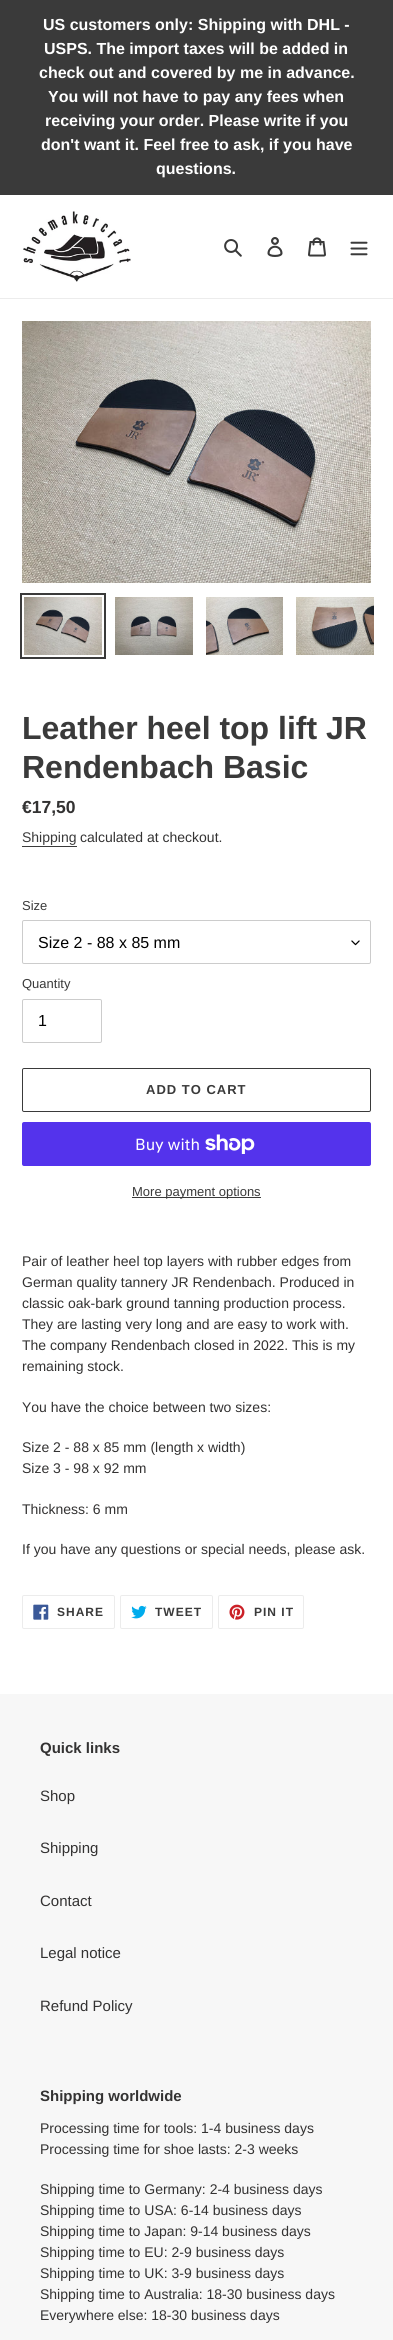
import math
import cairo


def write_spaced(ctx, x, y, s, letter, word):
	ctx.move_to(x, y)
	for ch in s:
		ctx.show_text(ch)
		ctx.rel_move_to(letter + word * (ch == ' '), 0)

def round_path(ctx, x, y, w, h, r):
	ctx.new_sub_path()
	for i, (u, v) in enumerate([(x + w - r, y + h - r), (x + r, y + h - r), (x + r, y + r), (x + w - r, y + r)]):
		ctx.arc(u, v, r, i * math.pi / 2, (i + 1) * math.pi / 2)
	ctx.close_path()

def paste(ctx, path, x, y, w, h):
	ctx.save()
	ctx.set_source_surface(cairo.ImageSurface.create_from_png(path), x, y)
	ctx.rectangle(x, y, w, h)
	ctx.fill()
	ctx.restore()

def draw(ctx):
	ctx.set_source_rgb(1, 1, 1)
	ctx.paint()
	ctx.set_source_rgb(0.227, 0.227, 0.227)
	ctx.rectangle(0, 0, 393, 195)
	ctx.fill()
	ctx.select_font_face('Liberation Sans', cairo.FONT_SLANT_NORMAL, cairo.FONT_WEIGHT_BOLD)
	ctx.set_font_size(16)
	ctx.set_source_rgb(1, 1, 1)
	for x, y, s in [
		(43, 30, 'US customers only: Shipping with DHL -'),
		(44, 54, 'USPS. The import taxes will be added in'),
		(39, 78, 'check out and covered by me in advance.'),
		(48, 102, 'You will not have to pay any fees when'),
		(45, 126, 'receiving your order. Please write if you'),
		(41, 150, 'don\'t want it. Feel free to ask, if you have'),
		(156, 174, 'questions.'),
	]:
		ctx.move_to(x, y)
		ctx.show_text(s)
	ctx.set_source_rgb(0.922, 0.922, 0.922)
	ctx.rectangle(0, 298, 393, 1)
	ctx.fill()
	paste(ctx, 'media/1.png', 23, 211, 108, 71)
	paste(ctx, 'media/2.png', 224, 239, 18, 18)
	paste(ctx, 'media/3.png', 267, 237, 16, 20)
	paste(ctx, 'media/4.png', 308, 237, 18, 20)
	paste(ctx, 'media/5.png', 350, 241, 18, 15)
	paste(ctx, 'media/6.png', 22, 321, 349, 262)
	ctx.rectangle(21, 594, 84, 64)
	ctx.set_source_rgb(0.227, 0.227, 0.227)
	ctx.stroke()
	paste(ctx, 'media/7.png', 24, 597, 78, 58)
	paste(ctx, 'media/8.png', 115, 597, 78, 58)
	paste(ctx, 'media/9.png', 206, 597, 77, 58)
	paste(ctx, 'media/10.png', 296, 597, 78, 58)
	ctx.set_font_size(32)
	ctx.move_to(22, 739)
	ctx.show_text('Leather heel top lift JR')
	ctx.move_to(22, 778)
	ctx.show_text('Rendenbach Basic')
	ctx.set_font_size(17.5)
	ctx.set_source_rgb(0.2, 0.196, 0.196)
	ctx.move_to(22, 813)
	ctx.show_text('€17,50')
	ctx.select_font_face('Liberation Sans')
	ctx.set_font_size(14)
	ctx.set_source_rgb(0.227, 0.227, 0.227)
	ctx.move_to(22, 842)
	ctx.show_text('Shipping')
	ctx.rectangle(22, 846, 55, 1)
	ctx.fill()
	ctx.set_source_rgb(0.2, 0.196, 0.196)
	ctx.move_to(80, 842)
	ctx.show_text('calculated at checkout.')
	ctx.set_font_size(13)
	ctx.set_source_rgb(0.227, 0.227, 0.227)
	ctx.move_to(22, 910)
	ctx.show_text('Size')
	paste(ctx, 'media/11.png', 351, 940, 9, 6)
	round_path(ctx, 22.5, 920.5, 348, 43, 1.5)
	ctx.set_source_rgb(0.8, 0.8, 0.8)
	ctx.set_line_width(1)
	ctx.stroke()
	ctx.set_font_size(16)
	ctx.set_source_rgb(0, 0, 0)
	ctx.move_to(38, 948)
	ctx.show_text('Size 2 - 88 x 85 mm')
	ctx.set_font_size(13)
	ctx.set_source_rgb(0.227, 0.227, 0.227)
	ctx.move_to(22, 988)
	ctx.show_text('Quantity')
	round_path(ctx, 22.5, 999.5, 79, 43, 1.5)
	ctx.set_source_rgb(0.8, 0.8, 0.8)
	ctx.stroke()
	ctx.set_font_size(16)
	ctx.set_source_rgb(0, 0, 0)
	ctx.move_to(38, 1026)
	ctx.show_text('1')
	round_path(ctx, 22.5, 1068.5, 348, 43, 1.5)
	ctx.set_source_rgb(0.227, 0.227, 0.227)
	ctx.stroke()
	ctx.select_font_face('Liberation Sans', cairo.FONT_SLANT_NORMAL, cairo.FONT_WEIGHT_BOLD)
	ctx.set_font_size(13)
	write_spaced(ctx, 146, 1094, 'ADD TO CART', 1, 0)
	ctx.set_source_rgb(0.329, 0.2, 0.922)
	round_path(ctx, 22, 1122, 349, 44, 2)
	ctx.fill()
	ctx.select_font_face('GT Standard')
	ctx.set_font_size(16)
	ctx.set_source_rgb(1, 1, 1)
	ctx.move_to(135, 1150)
	ctx.show_text('Buy with')
	paste(ctx, 'media/12.png', 205, 1134, 50, 20)
	ctx.set_source_rgb(0.227, 0.227, 0.227)
	ctx.rectangle(132, 1197, 129, 1)
	ctx.fill()
	ctx.select_font_face('Liberation Sans')
	ctx.set_font_size(13)
	ctx.move_to(132, 1196)
	ctx.show_text('More payment options')
	ctx.set_font_size(14)
	ctx.set_source_rgb(0.2, 0.196, 0.196)
	for x, y, s in [
		(22, 1266, 'Pair of leather heel top layers with rubber edges from'),
		(22, 1287, 'German quality tannery JR Rendenbach. Produced in'),
		(22, 1308, 'classic oak-bark ground tanning production process.'),
		(22, 1329, 'They are lasting very long and are easy to work with.'),
		(22, 1350, 'The company Rendenbach closed in 2022. This is my'),
		(22, 1371, 'remaining stock.'),
		(22, 1412, 'You have the choice between two sizes:'),
		(22, 1452, 'Size 2 - 88 x 85 mm (length x width)'),
		(22, 1473, 'Size 3 - 98 x 92 mm'),
		(22, 1514, 'Thickness: 6 mm'),
		(22, 1554, 'If you have any questions or special needs, please ask.'),
	]:
		ctx.move_to(x, y)
		ctx.show_text(s)
	round_path(ctx, 22.5, 1595.5, 92, 33, 1.5)
	ctx.set_source_rgb(0.922, 0.922, 0.922)
	ctx.stroke()
	paste(ctx, 'media/13.png', 33, 1604, 16, 16)
	ctx.select_font_face('Liberation Sans', cairo.FONT_SLANT_NORMAL, cairo.FONT_WEIGHT_BOLD)
	ctx.set_font_size(12)
	ctx.set_source_rgb(0.227, 0.227, 0.227)
	write_spaced(ctx, 57, 1616, 'SHARE', 1, 0)
	round_path(ctx, 120.5, 1595.5, 92, 33, 1.5)
	ctx.set_source_rgb(0.922, 0.922, 0.922)
	ctx.stroke()
	paste(ctx, 'media/14.png', 131, 1605, 16, 14)
	ctx.set_source_rgb(0.227, 0.227, 0.227)
	write_spaced(ctx, 155, 1616, 'TWEET', 1, 0)
	round_path(ctx, 218.5, 1595.5, 85, 33, 1.5)
	ctx.set_source_rgb(0.922, 0.922, 0.922)
	ctx.stroke()
	paste(ctx, 'media/15.png', 229, 1604, 16, 16)
	ctx.set_source_rgb(0.227, 0.227, 0.227)
	write_spaced(ctx, 254, 1616, 'PIN IT', 1, 0)
	ctx.set_source_rgb(0.965, 0.965, 0.965)
	ctx.rectangle(0, 1694, 393, 646)
	ctx.fill()
	ctx.set_font_size(15)
	ctx.set_source_rgb(0.2, 0.196, 0.196)
	ctx.move_to(40, 1753)
	ctx.show_text('Quick links')
	ctx.select_font_face('Liberation Sans')
	for x, y, s in [
		(40, 1801, 'Shop'),
		(40, 1853, 'Shipping'),
		(40, 1906, 'Contact'),
		(40, 1958, 'Legal notice'),
		(40, 2011, 'Refund Policy'),
	]:
		ctx.move_to(x, y)
		ctx.show_text(s)
	ctx.select_font_face('Liberation Sans', cairo.FONT_SLANT_NORMAL, cairo.FONT_WEIGHT_BOLD)
	ctx.move_to(40, 2101)
	ctx.show_text('Shipping worldwide')
	ctx.select_font_face('Liberation Sans')
	ctx.set_font_size(14)
	for x, y, s in [
		(40, 2133, 'Processing time for tools: 1-4 business days'),
		(40, 2154, 'Processing time for shoe lasts: 2-3 weeks'),
		(40, 2194, 'Shipping time to Germany: 2-4 business days'),
		(40, 2215, 'Shipping time to USA: 6-14 business days'),
		(40, 2236, 'Shipping time to Japan: 9-14 business days'),
		(40, 2257, 'Shipping time to EU: 2-9 business days'),
		(40, 2278, 'Shipping time to UK: 3-9 business days'),
		(40, 2299, 'Shipping time to Australia: 18-30 business days'),
		(40, 2320, 'Everywhere else: 18-30 business days'),
	]:
		ctx.move_to(x, y)
		ctx.show_text(s)


surface = cairo.ImageSurface(cairo.FORMAT_RGB24, 393, 2340)
ctx = cairo.Context(surface)
options = cairo.FontOptions()
options.set_hint_metrics(cairo.HINT_METRICS_OFF)
options.set_hint_style(cairo.HINT_STYLE_NONE)
ctx.set_font_options(options)
ctx.set_miter_limit(4)
draw(ctx)
surface.write_to_png('image.png')
